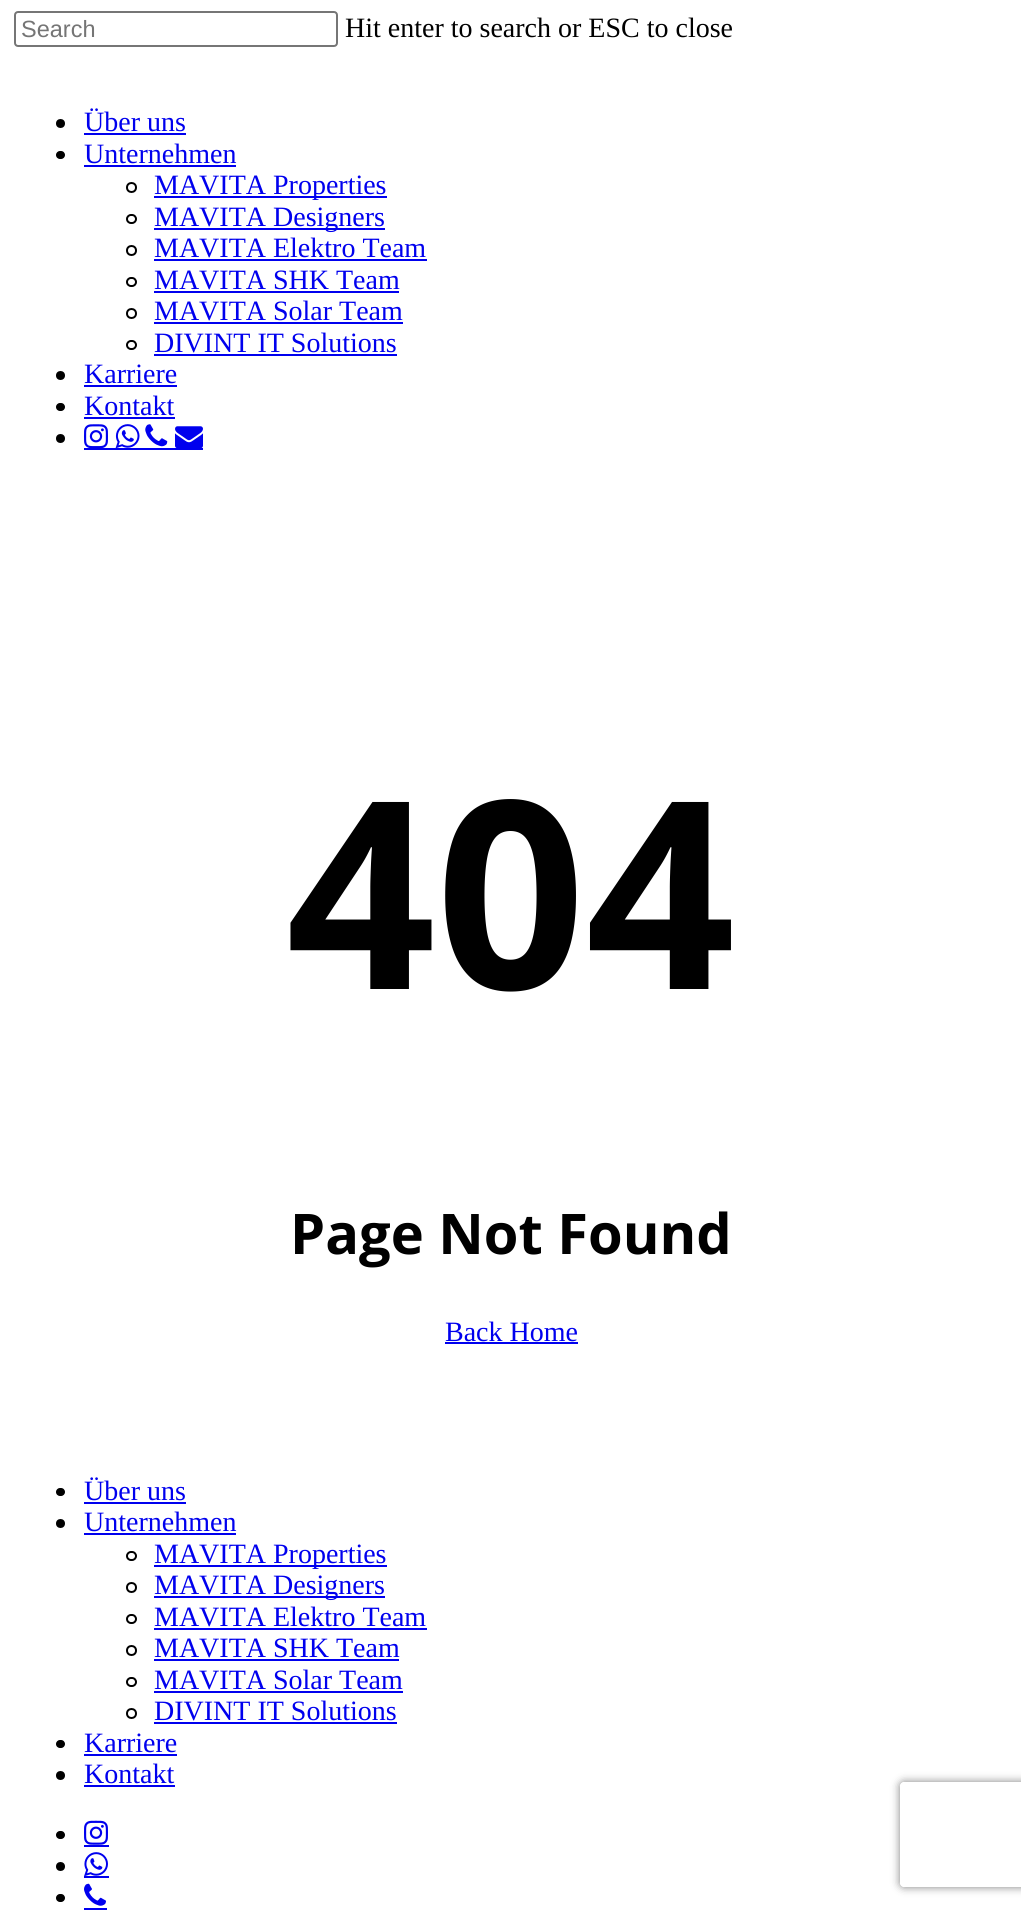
import math
import cairo


def round_path(ctx, x, y, w, h, r):
	ctx.new_sub_path()
	for i, (u, v) in enumerate([(x + w - r, y + h - r), (x + r, y + h - r), (x + r, y + r), (x + w - r, y + r)]):
		ctx.arc(u, v, r, i * math.pi / 2, (i + 1) * math.pi / 2)
	ctx.close_path()

def blur_box(ctx, x, y, w, h, r, blur, alpha):
	ctx.push_group_with_content(cairo.CONTENT_ALPHA)
	ctx.set_operator(cairo.OPERATOR_SOURCE)
	for i in range(15, -16, -2):
		e = blur * i / 6
		if min(w, h) + 2 * e > 0:
			ctx.set_source_rgba(0, 0, 0, alpha * math.erfc((i - 1) / 8.5) / 2)
			round_path(ctx, x - e, y - e, w + 2 * e, h + 2 * e, max(0, min(r + e + blur * .6, min(w, h) / 2 + e)))
			ctx.fill()
	ctx.mask(ctx.pop_group())

def paste(ctx, path, x, y, w, h):
	ctx.save()
	ctx.set_source_surface(cairo.ImageSurface.create_from_png(path), x, y)
	ctx.rectangle(x, y, w, h)
	ctx.fill()
	ctx.restore()

def draw(ctx):
	ctx.set_source_rgb(1, 1, 1)
	ctx.paint()
	round_path(ctx, 15, 12, 322, 34, 3)
	ctx.set_source_rgb(0.463, 0.463, 0.463)
	ctx.stroke()
	ctx.select_font_face('Liberation Sans')
	ctx.set_font_size(23.5)
	ctx.set_source_rgb(0.459, 0.459, 0.459)
	ctx.move_to(21, 37)
	ctx.show_text('Search')
	ctx.select_font_face('Liberation Serif')
	ctx.set_font_size(28)
	ctx.set_source_rgb(0, 0, 0)
	ctx.move_to(345, 37)
	ctx.show_text('Hit enter to search or ESC to close')
	ctx.new_path()
	ctx.arc(60.5, 123.5, 4.5, 0, 2 * math.pi)
	ctx.fill()
	ctx.set_source_rgb(0, 0, 0.933)
	ctx.move_to(84, 131)
	ctx.show_text('Über uns')
	ctx.rectangle(84, 133, 102, 2)
	ctx.fill()
	ctx.set_source_rgb(0, 0, 0)
	round_path(ctx, 56, 151, 9, 8, 4)
	ctx.fill()
	ctx.set_source_rgb(0, 0, 0.933)
	ctx.move_to(84, 163)
	ctx.show_text('Unternehmen')
	ctx.rectangle(84, 165, 152, 2)
	ctx.fill()
	ctx.arc(131.5, 187.5, 4.5, 0, 2 * math.pi)
	ctx.set_source_rgb(0, 0, 0)
	ctx.stroke()
	ctx.set_source_rgb(0, 0, 0.933)
	ctx.rectangle(154, 196, 233, 2)
	ctx.fill()
	ctx.move_to(154, 194)
	ctx.show_text('MAVITA Properties')
	round_path(ctx, 127, 215, 9, 8, 4)
	ctx.set_source_rgb(0, 0, 0)
	ctx.stroke()
	ctx.set_source_rgb(0, 0, 0.933)
	ctx.rectangle(154, 228, 231, 2)
	ctx.fill()
	ctx.move_to(154, 226)
	ctx.show_text('MAVITA Designers')
	ctx.new_path()
	ctx.arc(131.5, 250.5, 4.5, 0, 2 * math.pi)
	ctx.set_source_rgb(0, 0, 0)
	ctx.stroke()
	ctx.set_source_rgb(0, 0, 0.933)
	ctx.move_to(154, 257)
	ctx.show_text('MAVITA Elektro Team')
	ctx.rectangle(154, 259, 273, 2)
	ctx.fill()
	round_path(ctx, 127, 278, 9, 8, 4)
	ctx.set_source_rgb(0, 0, 0)
	ctx.stroke()
	ctx.set_source_rgb(0, 0, 0.933)
	ctx.move_to(154, 289)
	ctx.show_text('MAVITA SHK Team')
	ctx.rectangle(154, 291, 245, 2)
	ctx.fill()
	ctx.arc(131.5, 313.5, 4.5, 0, 2 * math.pi)
	ctx.set_source_rgb(0, 0, 0)
	ctx.stroke()
	ctx.set_source_rgb(0, 0, 0.933)
	ctx.move_to(154, 320)
	ctx.show_text('MAVITA Solar Team')
	ctx.rectangle(154, 322, 249, 2)
	ctx.fill()
	round_path(ctx, 127, 341, 9, 8, 4)
	ctx.set_source_rgb(0, 0, 0)
	ctx.stroke()
	ctx.set_source_rgb(0, 0, 0.933)
	ctx.move_to(154, 352)
	ctx.show_text('DIVINT IT Solutions')
	ctx.rectangle(154, 354, 243, 2)
	ctx.fill()
	ctx.set_source_rgb(0, 0, 0)
	ctx.arc(60.5, 375.5, 4.5, 0, 2 * math.pi)
	ctx.fill()
	ctx.set_source_rgb(0, 0, 0.933)
	ctx.move_to(84, 383)
	ctx.show_text('Karriere')
	ctx.rectangle(84, 385, 93, 2)
	ctx.fill()
	ctx.set_source_rgb(0, 0, 0)
	round_path(ctx, 56, 403, 9, 8, 4)
	ctx.fill()
	ctx.set_source_rgb(0, 0, 0.933)
	ctx.move_to(84, 415)
	ctx.show_text('Kontakt')
	ctx.rectangle(84, 417, 91, 2)
	ctx.fill()
	paste(ctx, 'media/1.png', 84, 424, 24, 24)
	ctx.rectangle(84, 448, 119, 2)
	ctx.fill()
	ctx.set_source_rgb(0, 0, 0)
	ctx.arc(60.5, 438.5, 4.5, 0, 2 * math.pi)
	ctx.fill()
	paste(ctx, 'media/2.png', 115, 424, 25, 24)
	paste(ctx, 'media/3.png', 145, 424, 23, 23)
	paste(ctx, 'media/4.png', 175, 426, 28, 22)
	ctx.select_font_face('Open Sans', cairo.FONT_SLANT_NORMAL, cairo.FONT_WEIGHT_BOLD)
	ctx.set_font_size(262)
	ctx.move_to(286, 989)
	ctx.show_text('404')
	ctx.set_font_size(56)
	ctx.move_to(290, 1254)
	ctx.show_text('Page Not Found')
	ctx.select_font_face('Liberation Serif')
	ctx.set_font_size(28)
	ctx.set_source_rgb(0, 0, 0.933)
	ctx.move_to(445, 1341)
	ctx.show_text('Back Home')
	ctx.rectangle(445, 1342, 133, 2)
	ctx.fill()
	ctx.set_source_rgb(0, 0, 0)
	round_path(ctx, 56, 1488, 9, 8, 4)
	ctx.fill()
	ctx.set_source_rgb(0, 0, 0.933)
	ctx.move_to(84, 1500)
	ctx.show_text('Über uns')
	ctx.rectangle(84, 1502, 102, 2)
	ctx.fill()
	ctx.set_source_rgb(0, 0, 0)
	ctx.arc(60.5, 1523.5, 4.5, 0, 2 * math.pi)
	ctx.fill()
	ctx.set_source_rgb(0, 0, 0.933)
	ctx.move_to(84, 1531)
	ctx.show_text('Unternehmen')
	ctx.rectangle(84, 1533, 152, 2)
	ctx.fill()
	round_path(ctx, 127, 1552, 9, 8, 4)
	ctx.set_source_rgb(0, 0, 0)
	ctx.stroke()
	ctx.set_source_rgb(0, 0, 0.933)
	ctx.rectangle(154, 1565, 233, 2)
	ctx.fill()
	ctx.move_to(154, 1563)
	ctx.show_text('MAVITA Properties')
	ctx.new_path()
	ctx.arc(131.5, 1587.5, 4.5, 0, 2 * math.pi)
	ctx.set_source_rgb(0, 0, 0)
	ctx.stroke()
	ctx.set_source_rgb(0, 0, 0.933)
	ctx.rectangle(154, 1596, 231, 2)
	ctx.fill()
	ctx.move_to(154, 1594)
	ctx.show_text('MAVITA Designers')
	round_path(ctx, 127, 1615, 9, 8, 4)
	ctx.set_source_rgb(0, 0, 0)
	ctx.stroke()
	ctx.set_source_rgb(0, 0, 0.933)
	ctx.move_to(154, 1626)
	ctx.show_text('MAVITA Elektro Team')
	ctx.rectangle(154, 1628, 273, 2)
	ctx.fill()
	ctx.arc(131.5, 1650.5, 4.5, 0, 2 * math.pi)
	ctx.set_source_rgb(0, 0, 0)
	ctx.stroke()
	ctx.set_source_rgb(0, 0, 0.933)
	ctx.move_to(154, 1657)
	ctx.show_text('MAVITA SHK Team')
	ctx.rectangle(154, 1659, 245, 2)
	ctx.fill()
	round_path(ctx, 127, 1678, 9, 8, 4)
	ctx.set_source_rgb(0, 0, 0)
	ctx.stroke()
	ctx.set_source_rgb(0, 0, 0.933)
	ctx.move_to(154, 1689)
	ctx.show_text('MAVITA Solar Team')
	ctx.rectangle(154, 1691, 249, 2)
	ctx.fill()
	ctx.arc(131.5, 1713.5, 4.5, 0, 2 * math.pi)
	ctx.set_source_rgb(0, 0, 0)
	ctx.stroke()
	ctx.set_source_rgb(0, 0, 0.933)
	ctx.move_to(154, 1720)
	ctx.show_text('DIVINT IT Solutions')
	ctx.rectangle(154, 1722, 243, 2)
	ctx.fill()
	ctx.set_source_rgb(0, 0, 0)
	round_path(ctx, 56, 1740, 9, 8, 4)
	ctx.fill()
	ctx.set_source_rgb(0, 0, 0.933)
	ctx.move_to(84, 1752)
	ctx.show_text('Karriere')
	ctx.rectangle(84, 1754, 93, 2)
	ctx.fill()
	ctx.set_source_rgb(0, 0, 0)
	ctx.arc(60.5, 1775.5, 4.5, 0, 2 * math.pi)
	ctx.fill()
	ctx.set_source_rgb(0, 0, 0.933)
	ctx.move_to(84, 1783)
	ctx.show_text('Kontakt')
	ctx.rectangle(84, 1785, 91, 2)
	ctx.fill()
	ctx.set_source_rgb(0, 0, 0)
	round_path(ctx, 56, 1831, 9, 8, 4)
	ctx.fill()
	paste(ctx, 'media/5.png', 84, 1820, 24, 25)
	ctx.set_source_rgb(0, 0, 0.933)
	ctx.rectangle(84, 1845, 25, 2)
	ctx.fill()
	ctx.set_source_rgb(0, 0, 0)
	ctx.arc(60.5, 1866.5, 4.5, 0, 2 * math.pi)
	ctx.fill()
	paste(ctx, 'media/6.png', 84, 1852, 24, 24)
	ctx.set_source_rgb(0, 0, 0.933)
	ctx.rectangle(84, 1876, 25, 2)
	ctx.fill()
	ctx.set_source_rgb(0, 0, 0)
	round_path(ctx, 56, 1894, 9, 8, 4)
	ctx.fill()
	paste(ctx, 'media/7.png', 84, 1883, 22, 23)
	ctx.set_source_rgb(0, 0, 0.933)
	ctx.rectangle(84, 1908, 23, 2)
	ctx.fill()
	ctx.save()
	ctx.set_fill_rule(cairo.FILL_RULE_EVEN_ODD)
	ctx.new_path()
	ctx.move_to(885, 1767)
	ctx.line_to(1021, 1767)
	ctx.line_to(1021, 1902)
	ctx.line_to(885, 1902)
	ctx.close_path()
	ctx.move_to(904, 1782)
	ctx.line_to(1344, 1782)
	ctx.curve_to(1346, 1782, 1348, 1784, 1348, 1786)
	ctx.line_to(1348, 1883)
	ctx.curve_to(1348, 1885, 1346, 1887, 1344, 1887)
	ctx.line_to(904, 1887)
	ctx.curve_to(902, 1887, 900, 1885, 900, 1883)
	ctx.line_to(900, 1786)
	ctx.curve_to(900, 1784, 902, 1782, 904, 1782)
	ctx.close_path()
	ctx.clip()
	ctx.set_source_rgb(0.502, 0.502, 0.502)
	blur_box(ctx, 900, 1782, 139, 105, 4, 4.5, 1)
	ctx.restore()


surface = cairo.ImageSurface(cairo.FORMAT_RGB24, 1021, 1910)
ctx = cairo.Context(surface)
options = cairo.FontOptions()
options.set_hint_metrics(cairo.HINT_METRICS_OFF)
options.set_hint_style(cairo.HINT_STYLE_NONE)
ctx.set_font_options(options)
ctx.set_miter_limit(4)
draw(ctx)
surface.write_to_png('image.png')
